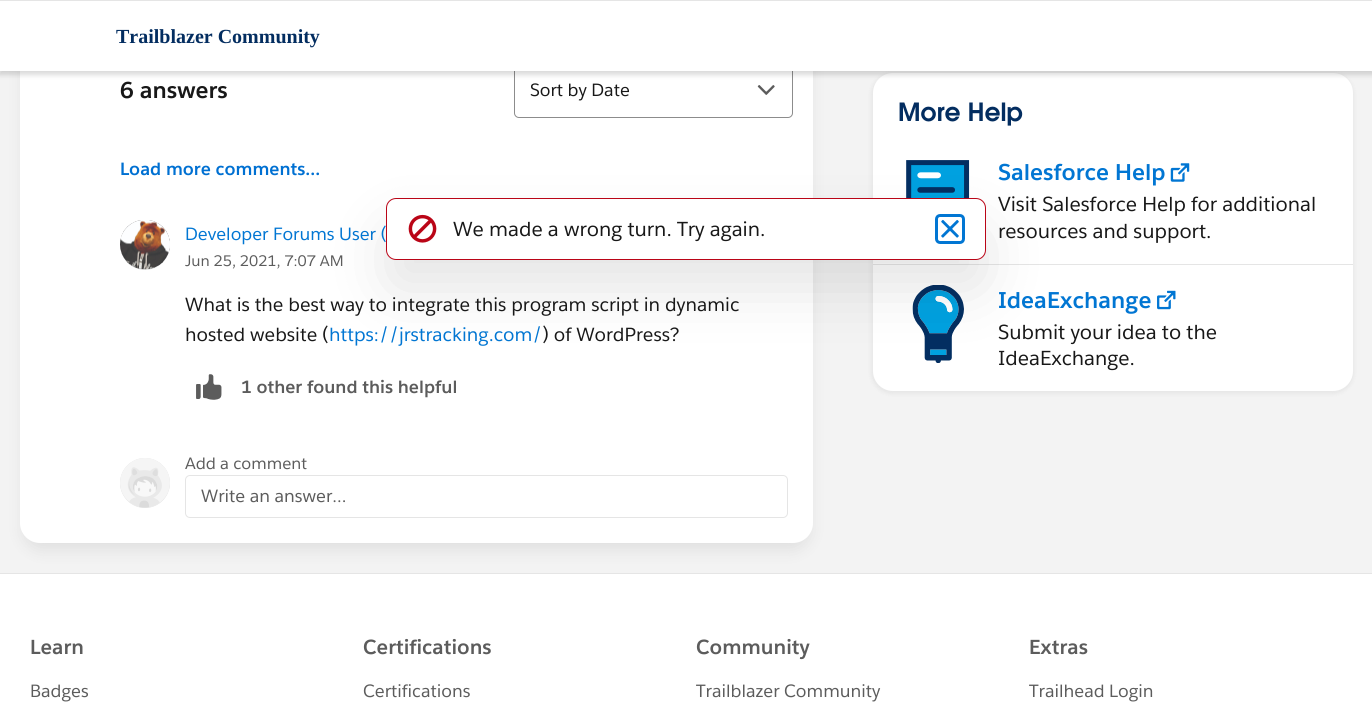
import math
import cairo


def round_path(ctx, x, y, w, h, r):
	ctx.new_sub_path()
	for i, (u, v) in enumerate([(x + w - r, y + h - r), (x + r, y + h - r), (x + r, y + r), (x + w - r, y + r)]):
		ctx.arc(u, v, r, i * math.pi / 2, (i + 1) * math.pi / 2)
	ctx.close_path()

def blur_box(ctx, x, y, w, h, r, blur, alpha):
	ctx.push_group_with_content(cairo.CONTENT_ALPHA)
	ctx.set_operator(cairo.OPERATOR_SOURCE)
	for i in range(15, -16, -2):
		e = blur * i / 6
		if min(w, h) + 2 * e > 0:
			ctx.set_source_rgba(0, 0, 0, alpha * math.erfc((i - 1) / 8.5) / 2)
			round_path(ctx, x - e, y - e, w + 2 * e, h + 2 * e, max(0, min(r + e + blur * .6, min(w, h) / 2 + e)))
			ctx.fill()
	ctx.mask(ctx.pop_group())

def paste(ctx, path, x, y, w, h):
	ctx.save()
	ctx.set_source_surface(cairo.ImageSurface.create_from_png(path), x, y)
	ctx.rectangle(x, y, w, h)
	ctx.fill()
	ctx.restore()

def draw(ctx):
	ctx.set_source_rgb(1, 1, 1)
	ctx.paint()
	ctx.set_source_rgb(0.953, 0.953, 0.953)
	ctx.rectangle(0, 71, 1372, 502)
	ctx.fill()
	ctx.set_source_rgb(0.898, 0.898, 0.898)
	ctx.rectangle(0, 573, 1372, 1)
	ctx.fill()
	ctx.set_source_rgb(0.094, 0.094, 0.094)
	blur_box(ctx, 23, -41, 787, 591, 18, 7.5, 0.09)
	ctx.set_source_rgb(1, 1, 1)
	round_path(ctx, 20, -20, 793, 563, 20)
	ctx.fill()
	round_path(ctx, 514.5, 63.5, 278, 54, 4.5)
	ctx.set_source_rgb(0.549, 0.549, 0.549)
	ctx.set_line_width(1)
	ctx.stroke()
	ctx.set_source_rgb(0.094, 0.094, 0.094)
	blur_box(ctx, 871, 73, 483, 321, 21, 2, 0.06)
	ctx.set_source_rgb(1, 1, 1)
	round_path(ctx, 873, 73, 480, 318, 20)
	ctx.fill()
	ctx.set_source_rgb(0.094, 0.094, 0.094)
	blur_box(ctx, -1, 1, 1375, 74, 0, 2.5, 0.16)
	ctx.set_source_rgb(1, 1, 1)
	ctx.rectangle(0, 1, 1372, 70)
	ctx.fill()
	ctx.set_source_rgb(0.898, 0.898, 0.898)
	ctx.rectangle(0, 0, 1372, 1)
	ctx.fill()
	ctx.select_font_face('Liberation Serif', cairo.FONT_SLANT_NORMAL, cairo.FONT_WEIGHT_BOLD)
	ctx.set_font_size(20)
	ctx.set_source_rgb(0.012, 0.176, 0.376)
	ctx.move_to(116, 43)
	ctx.show_text('Trailblazer Community')
	ctx.select_font_face('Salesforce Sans', cairo.FONT_SLANT_NORMAL, cairo.FONT_WEIGHT_BOLD)
	ctx.set_font_size(22.5)
	ctx.set_source_rgb(0.094, 0.094, 0.094)
	ctx.move_to(120, 98)
	ctx.show_text('6 answers')
	ctx.select_font_face('Salesforce Sans')
	ctx.set_font_size(17.5)
	ctx.move_to(530, 96)
	ctx.show_text('Sort by Date')
	paste(ctx, 'media/1.png', 757, 85, 18, 10)
	ctx.select_font_face('Salesforce Sans', cairo.FONT_SLANT_NORMAL, cairo.FONT_WEIGHT_BOLD)
	ctx.set_source_rgb(0, 0.439, 0.824)
	ctx.move_to(120, 175)
	ctx.show_text('Load more comments...')
	ctx.set_source_rgb(0.898, 0.898, 0.898)
	ctx.new_path()
	ctx.arc(145, 245, 25, 0, 2 * math.pi)
	ctx.fill()
	paste(ctx, 'media/2.png', 120, 220, 50, 50)
	ctx.select_font_face('Salesforce Sans')
	ctx.set_source_rgb(0.004, 0.463, 0.827)
	ctx.move_to(185, 240)
	ctx.show_text('Developer Forums User (')
	ctx.set_font_size(15)
	ctx.set_source_rgb(0.361, 0.361, 0.361)
	ctx.move_to(185, 266)
	ctx.show_text('Jun 25, 2021, 7:07 AM')
	ctx.set_font_size(18.75)
	ctx.set_source_rgb(0.094, 0.094, 0.094)
	ctx.move_to(185, 311)
	ctx.show_text('What is the best way to integrate this program script in dynamic')
	ctx.move_to(185, 341)
	ctx.show_text('hosted website (')
	ctx.set_source_rgb(0.004, 0.463, 0.827)
	ctx.move_to(329, 341)
	ctx.show_text('https://jrstracking.com/')
	ctx.set_source_rgb(0.094, 0.094, 0.094)
	ctx.move_to(542, 341)
	ctx.show_text(') of WordPress?')
	paste(ctx, 'media/3.png', 196, 374, 26, 26)
	ctx.select_font_face('Salesforce Sans', cairo.FONT_SLANT_NORMAL, cairo.FONT_WEIGHT_BOLD)
	ctx.set_font_size(17.5)
	ctx.set_source_rgb(0.361, 0.361, 0.361)
	ctx.move_to(241, 393)
	ctx.show_text('1 other found this helpful')
	ctx.set_source_rgb(0.898, 0.898, 0.898)
	ctx.new_path()
	ctx.arc(145, 483, 25, 0, 2 * math.pi)
	ctx.fill()
	paste(ctx, 'media/4.png', 120, 458, 50, 50)
	ctx.select_font_face('Salesforce Sans')
	ctx.set_font_size(16.25)
	ctx.set_source_rgb(0.361, 0.361, 0.361)
	ctx.move_to(185, 469)
	ctx.show_text('Add a comment')
	round_path(ctx, 185.5, 475.5, 602, 42, 4.5)
	ctx.set_source_rgb(0.898, 0.898, 0.898)
	ctx.stroke()
	ctx.set_font_size(17.5)
	ctx.set_source_rgb(0.361, 0.361, 0.361)
	ctx.move_to(201, 502)
	ctx.show_text('Write an answer...')
	ctx.select_font_face('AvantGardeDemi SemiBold')
	ctx.set_font_size(25)
	ctx.set_source_rgb(0.012, 0.176, 0.376)
	ctx.move_to(898, 121)
	ctx.show_text('More Help')
	paste(ctx, 'media/5.png', 906, 160, 64, 38)
	ctx.select_font_face('Salesforce Sans', cairo.FONT_SLANT_NORMAL, cairo.FONT_WEIGHT_BOLD)
	ctx.set_font_size(22.5)
	ctx.set_source_rgb(0.004, 0.463, 0.827)
	ctx.move_to(998, 180)
	ctx.show_text('Salesforce Help')
	paste(ctx, 'media/6.png', 1170, 163, 20, 19)
	ctx.select_font_face('Salesforce Sans')
	ctx.set_font_size(20)
	ctx.set_source_rgb(0.094, 0.094, 0.094)
	ctx.move_to(998, 211)
	ctx.show_text('Visit Salesforce Help for additional')
	ctx.move_to(998, 238)
	ctx.show_text('resources and support.')
	ctx.set_source_rgb(0.898, 0.898, 0.898)
	ctx.rectangle(873, 264, 480, 1)
	ctx.fill()
	paste(ctx, 'media/7.png', 912, 285, 52, 78)
	ctx.select_font_face('Salesforce Sans', cairo.FONT_SLANT_NORMAL, cairo.FONT_WEIGHT_BOLD)
	ctx.set_font_size(22.5)
	ctx.set_source_rgb(0.004, 0.463, 0.827)
	ctx.move_to(998, 308)
	ctx.show_text('IdeaExchange')
	paste(ctx, 'media/8.png', 1157, 290, 19, 20)
	ctx.select_font_face('Salesforce Sans')
	ctx.set_font_size(20)
	ctx.set_source_rgb(0.094, 0.094, 0.094)
	ctx.move_to(998, 339)
	ctx.show_text('Submit your idea to the')
	ctx.move_to(998, 365)
	ctx.show_text('IdeaExchange.')
	ctx.set_source_rgb(0.094, 0.094, 0.094)
	blur_box(ctx, 389, 230, 595, 58, 8, 30, 0.12)
	ctx.set_source_rgb(1, 1, 1)
	round_path(ctx, 386.5, 198.5, 599, 61, 9.5)
	ctx.fill_preserve()
	ctx.set_source_rgb(0.729, 0.02, 0.09)
	ctx.stroke()
	paste(ctx, 'media/9.png', 408, 214, 29, 29)
	ctx.set_source_rgb(0.094, 0.094, 0.094)
	ctx.move_to(453, 236)
	ctx.show_text('We made a wrong turn. Try again.')
	round_path(ctx, 936.5, 215.5, 27, 27, 3.5)
	ctx.set_source_rgb(0.004, 0.463, 0.827)
	ctx.set_line_width(3)
	ctx.stroke()
	paste(ctx, 'media/10.png', 941, 219, 18, 19)
	ctx.select_font_face('Salesforce Sans', cairo.FONT_SLANT_NORMAL, cairo.FONT_WEIGHT_BOLD)
	ctx.set_source_rgb(0.361, 0.361, 0.361)
	ctx.move_to(30, 654)
	ctx.show_text('Learn')
	ctx.select_font_face('Salesforce Sans')
	ctx.set_font_size(17.5)
	ctx.move_to(30, 697)
	ctx.show_text('Badges')
	ctx.select_font_face('Salesforce Sans', cairo.FONT_SLANT_NORMAL, cairo.FONT_WEIGHT_BOLD)
	ctx.set_font_size(20)
	ctx.move_to(363, 654)
	ctx.show_text('Certifications')
	ctx.select_font_face('Salesforce Sans')
	ctx.set_font_size(17.5)
	ctx.move_to(363, 697)
	ctx.show_text('Certifications')
	ctx.select_font_face('Salesforce Sans', cairo.FONT_SLANT_NORMAL, cairo.FONT_WEIGHT_BOLD)
	ctx.set_font_size(20)
	ctx.move_to(696, 654)
	ctx.show_text('Community')
	ctx.select_font_face('Salesforce Sans')
	ctx.set_font_size(17.5)
	ctx.move_to(696, 697)
	ctx.show_text('Trailblazer Community')
	ctx.select_font_face('Salesforce Sans', cairo.FONT_SLANT_NORMAL, cairo.FONT_WEIGHT_BOLD)
	ctx.set_font_size(20)
	ctx.move_to(1029, 654)
	ctx.show_text('Extras')
	ctx.select_font_face('Salesforce Sans')
	ctx.set_font_size(17.5)
	ctx.move_to(1029, 697)
	ctx.show_text('Trailhead Login')


surface = cairo.ImageSurface(cairo.FORMAT_RGB24, 1372, 721)
ctx = cairo.Context(surface)
options = cairo.FontOptions()
options.set_hint_metrics(cairo.HINT_METRICS_OFF)
options.set_hint_style(cairo.HINT_STYLE_NONE)
ctx.set_font_options(options)
ctx.set_miter_limit(4)
draw(ctx)
surface.write_to_png('image.png')
